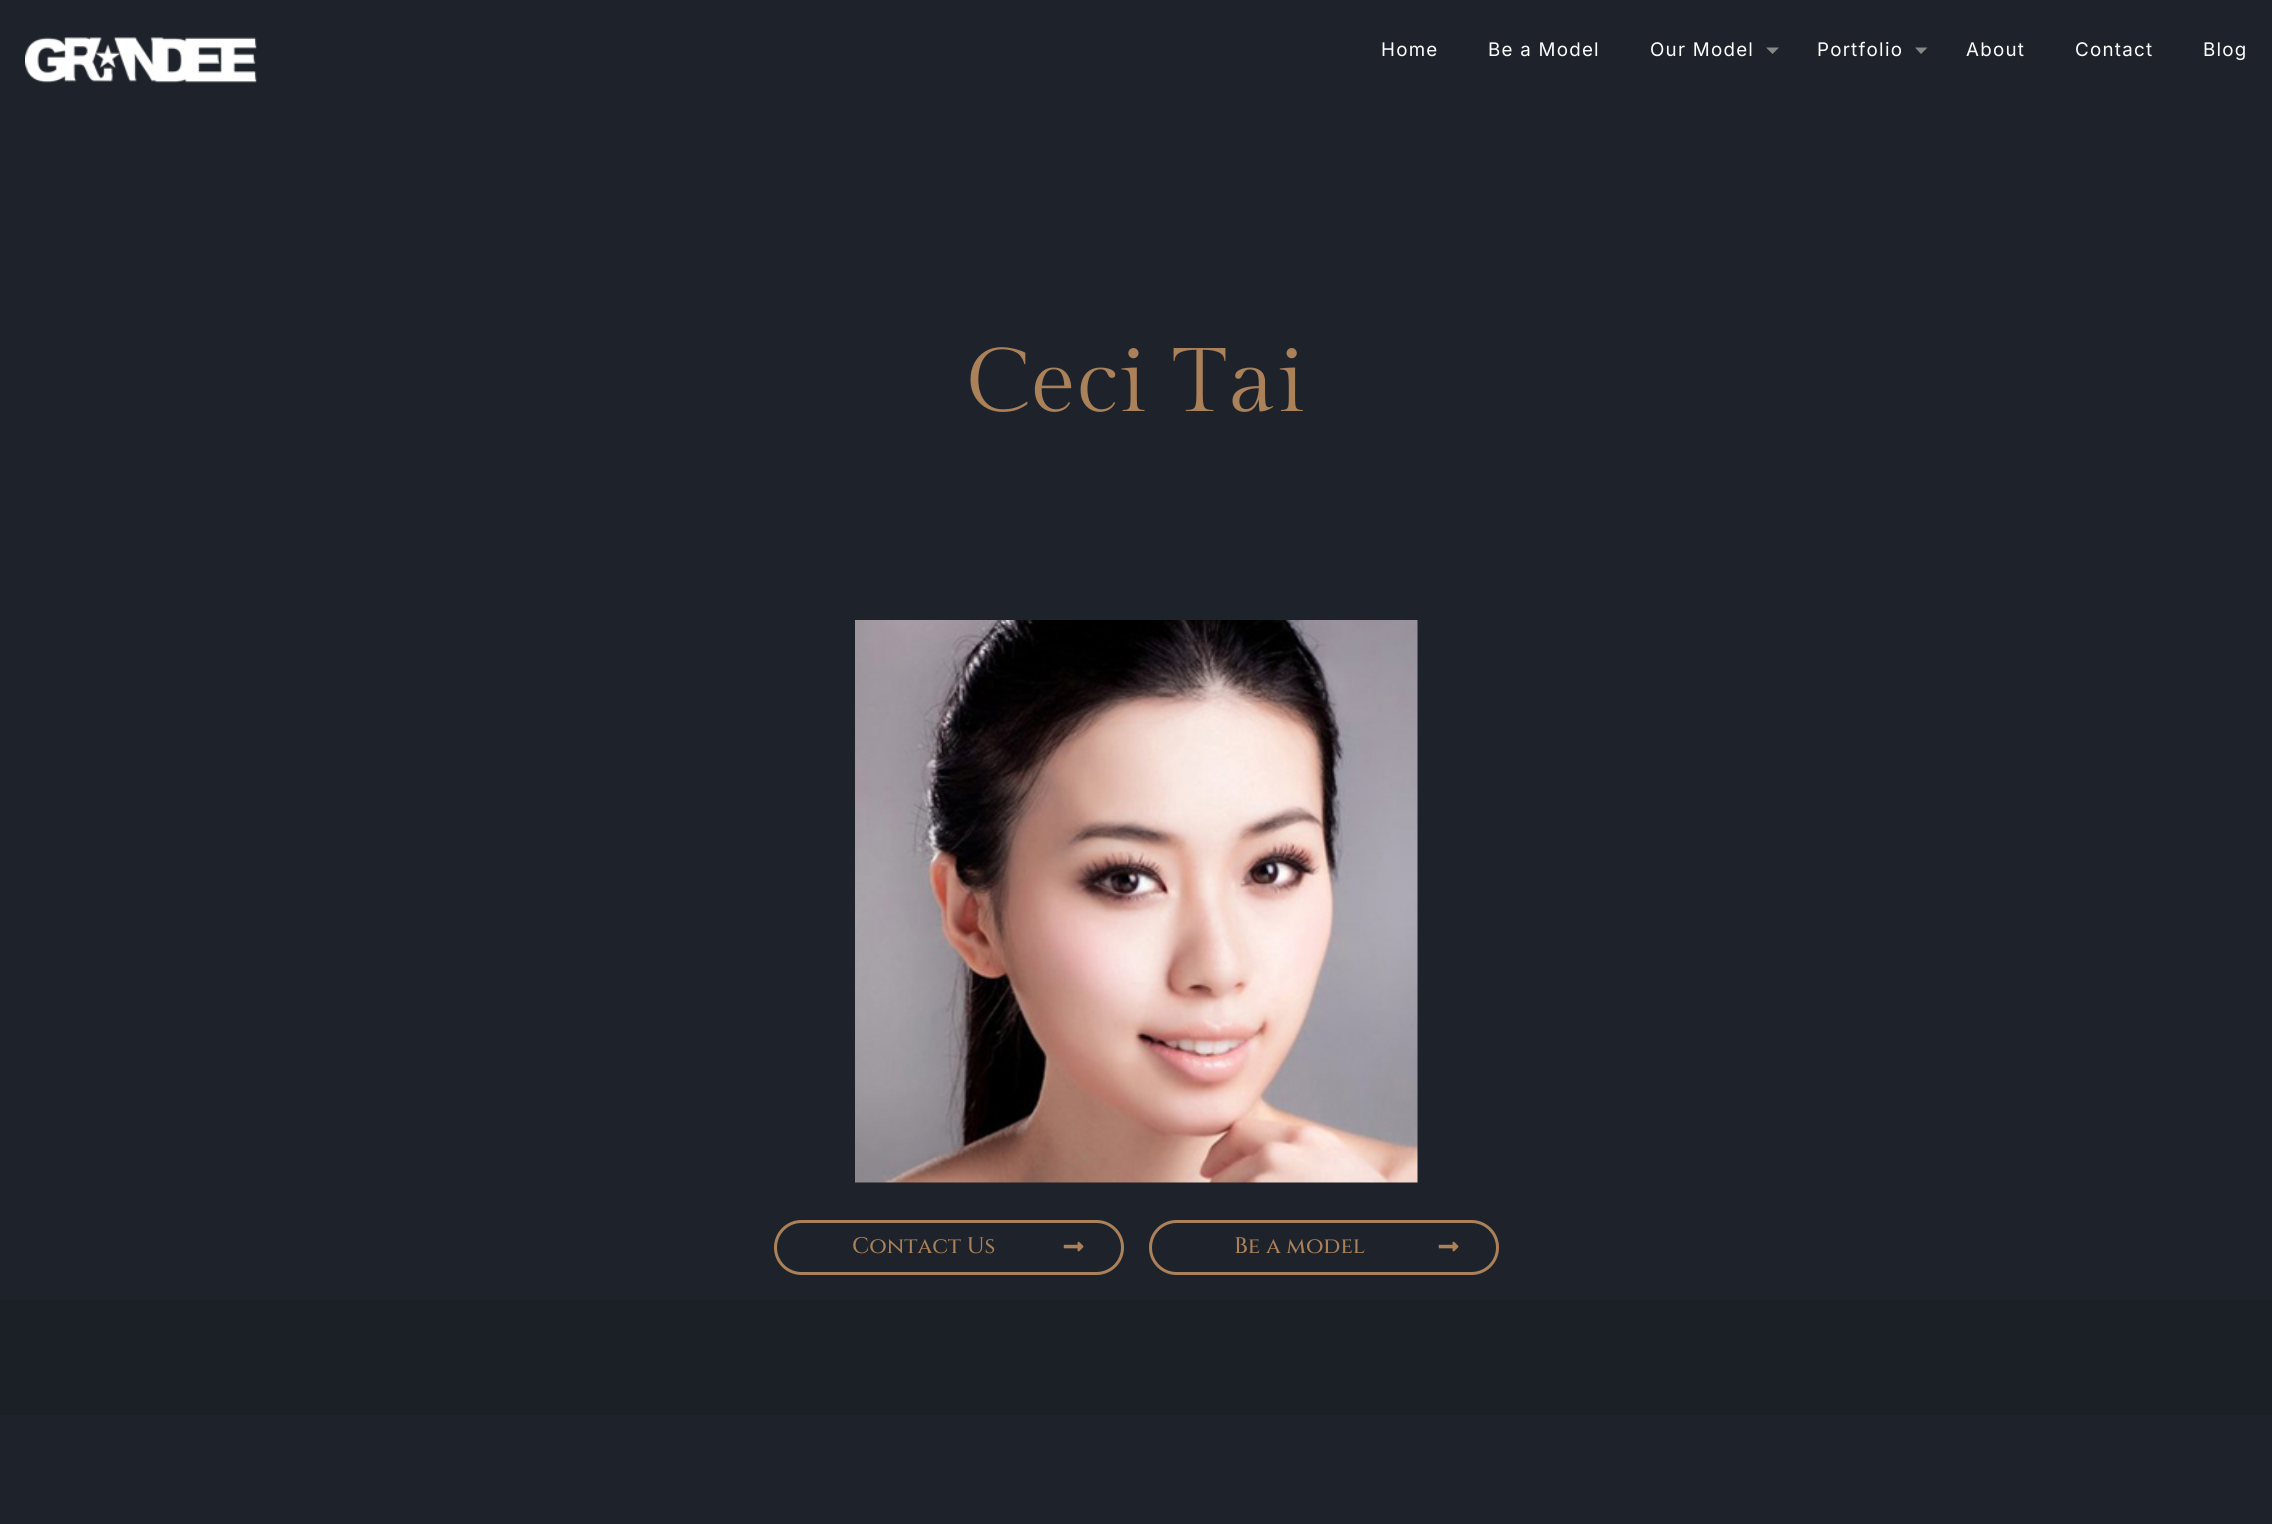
import math
import cairo


def write_spaced(ctx, x, y, s, letter, word):
	ctx.move_to(x, y)
	for ch in s:
		ctx.show_text(ch)
		ctx.rel_move_to(letter + word * (ch == ' '), 0)

def round_path(ctx, x, y, w, h, r):
	ctx.new_sub_path()
	for i, (u, v) in enumerate([(x + w - r, y + h - r), (x + r, y + h - r), (x + r, y + r), (x + w - r, y + r)]):
		ctx.arc(u, v, r, i * math.pi / 2, (i + 1) * math.pi / 2)
	ctx.close_path()

def paste(ctx, path, x, y, w, h):
	ctx.save()
	ctx.set_source_surface(cairo.ImageSurface.create_from_png(path), x, y)
	ctx.rectangle(x, y, w, h)
	ctx.fill()
	ctx.restore()

def draw(ctx):
	ctx.set_source_rgb(0.118, 0.137, 0.169)
	ctx.paint()
	paste(ctx, 'media/1.png', 25, 37, 232, 46)
	ctx.select_font_face('Inter')
	ctx.set_font_size(18.75)
	ctx.set_source_rgb(1, 1, 1)
	for x, y, s in [
		(1381, 56, 'Home'),
		(1488, 56, 'Be a Model'),
		(1650, 56, 'Our Model'),
	]:
		write_spaced(ctx, x, y, s, 1.25, 0)
	ctx.set_source_rgb(0.525, 0.533, 0.549)
	ctx.new_path()
	ctx.move_to(1766, 47.5)
	ctx.line_to(1779, 47.5)
	ctx.line_to(1772.5, 54)
	ctx.close_path()
	ctx.fill()
	ctx.set_source_rgb(1, 1, 1)
	write_spaced(ctx, 1817, 56, 'Portfolio', 1.25, 0)
	ctx.set_source_rgb(0.525, 0.533, 0.549)
	ctx.new_path()
	ctx.move_to(1915, 47.5)
	ctx.line_to(1927.5, 47.5)
	ctx.line_to(1921, 54)
	ctx.close_path()
	ctx.fill()
	ctx.set_source_rgb(1, 1, 1)
	for x, y, s in [
		(1966, 56, 'About'),
		(2075, 56, 'Contact'),
		(2203, 56, 'Blog'),
	]:
		write_spaced(ctx, x, y, s, 1.25, 0)
	ctx.select_font_face('Gilda Display')
	ctx.set_font_size(90)
	ctx.set_source_rgb(0.671, 0.506, 0.353)
	write_spaced(ctx, 966, 411, 'Ceci Tai', 1.25, 0)
	paste(ctx, 'media/2.png', 855, 620, 563, 563)
	round_path(ctx, 775.5, 1221.5, 347, 52, 26)
	ctx.set_line_width(3)
	ctx.stroke()
	ctx.select_font_face('Cinzel Medium')
	ctx.set_font_size(22.5)
	ctx.move_to(852, 1253)
	ctx.show_text('Contact Us')
	paste(ctx, 'media/3.png', 1063, 1241, 21, 11)
	round_path(ctx, 1150.5, 1221.5, 347, 52, 26)
	ctx.stroke()
	ctx.move_to(1234, 1253)
	ctx.show_text('Be a model')
	paste(ctx, 'media/3.png', 1438, 1241, 21, 11)
	ctx.set_source_rgb(0.106, 0.125, 0.153)
	ctx.rectangle(0, 1300, 2272, 115)
	ctx.fill()


surface = cairo.ImageSurface(cairo.FORMAT_RGB24, 2272, 1524)
ctx = cairo.Context(surface)
options = cairo.FontOptions()
options.set_hint_metrics(cairo.HINT_METRICS_OFF)
options.set_hint_style(cairo.HINT_STYLE_NONE)
ctx.set_font_options(options)
ctx.set_miter_limit(4)
draw(ctx)
surface.write_to_png('image.png')
